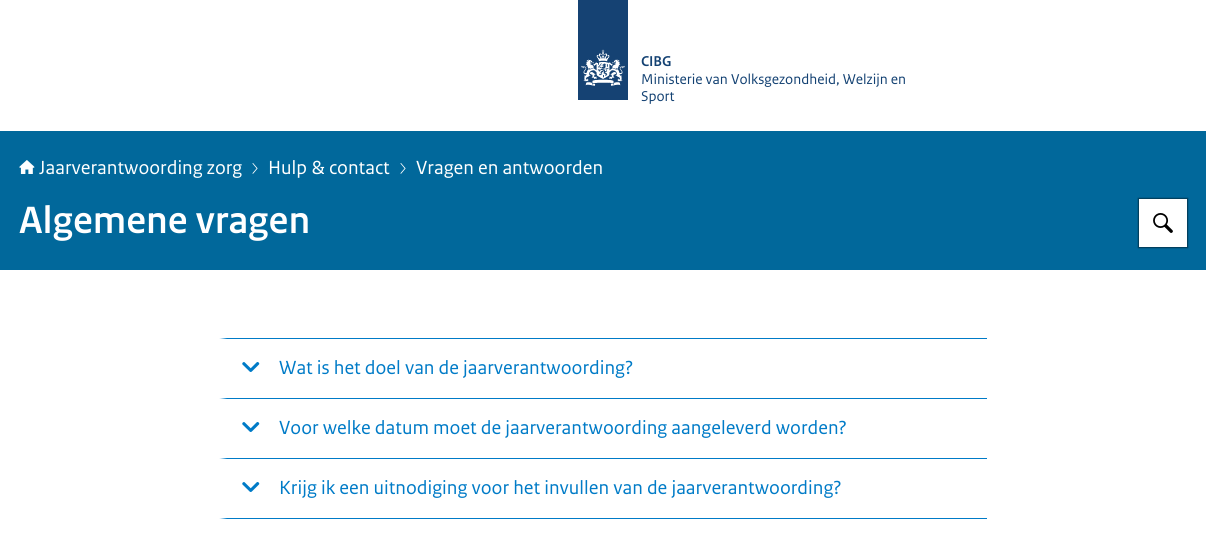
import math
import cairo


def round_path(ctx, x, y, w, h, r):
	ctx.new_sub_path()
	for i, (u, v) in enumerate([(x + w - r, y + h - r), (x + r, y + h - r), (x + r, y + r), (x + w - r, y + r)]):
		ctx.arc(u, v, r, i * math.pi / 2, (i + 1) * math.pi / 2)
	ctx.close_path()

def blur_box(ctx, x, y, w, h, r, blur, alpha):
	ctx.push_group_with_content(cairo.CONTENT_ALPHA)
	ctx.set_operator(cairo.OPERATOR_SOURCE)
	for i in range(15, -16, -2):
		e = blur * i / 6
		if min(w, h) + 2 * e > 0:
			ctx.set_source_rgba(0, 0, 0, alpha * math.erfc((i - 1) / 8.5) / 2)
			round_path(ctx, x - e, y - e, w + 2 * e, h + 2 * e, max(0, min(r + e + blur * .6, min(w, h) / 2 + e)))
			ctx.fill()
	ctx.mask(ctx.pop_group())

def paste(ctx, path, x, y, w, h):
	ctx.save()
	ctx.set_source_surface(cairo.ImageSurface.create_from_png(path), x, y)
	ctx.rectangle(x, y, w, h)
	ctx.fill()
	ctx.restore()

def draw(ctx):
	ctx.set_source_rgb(1, 1, 1)
	ctx.paint()
	paste(ctx, 'media/1.png', 578, 0, 50, 100)
	ctx.select_font_face('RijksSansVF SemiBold')
	ctx.set_font_size(15)
	ctx.set_source_rgb(0.082, 0.259, 0.451)
	ctx.move_to(641, 66)
	ctx.show_text('CIBG')
	ctx.select_font_face('RijksSansVF')
	ctx.move_to(641, 84)
	ctx.show_text('Ministerie van Volksgezondheid, Welzijn en')
	ctx.move_to(641, 101)
	ctx.show_text('Sport')
	ctx.set_source_rgb(0.004, 0.408, 0.608)
	ctx.rectangle(0, 131, 1206, 139)
	ctx.fill()
	paste(ctx, 'media/2.png', 19, 160, 16, 14)
	ctx.set_font_size(20)
	ctx.set_source_rgb(1, 1, 1)
	ctx.move_to(39, 174)
	ctx.show_text('Jaarverantwoording zorg')
	paste(ctx, 'media/3.png', 252, 163, 6, 11)
	ctx.move_to(268, 174)
	ctx.show_text('Hulp & contact')
	paste(ctx, 'media/3.png', 400, 163, 6, 11)
	ctx.move_to(416, 174)
	ctx.show_text('Vragen en antwoorden')
	ctx.select_font_face('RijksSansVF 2 SemiBold')
	ctx.set_font_size(40)
	ctx.move_to(19, 233)
	ctx.show_text('Algemene vragen')
	ctx.set_source_rgb(0, 0, 0)
	blur_box(ctx, 1138, 198, 50, 50, 0, 0.5, 0.44)
	ctx.set_source_rgb(1, 1, 1)
	ctx.rectangle(1139, 199, 48, 48)
	ctx.fill()
	paste(ctx, 'media/4.png', 1153, 213, 20, 20)
	ctx.set_source_rgb(0, 0.482, 0.78)
	ctx.new_path()
	ctx.move_to(219, 338)
	ctx.line_to(987, 338)
	ctx.line_to(987, 339)
	ctx.line_to(227, 339)
	ctx.close_path()
	ctx.fill()
	paste(ctx, 'media/5.png', 242, 362, 18, 10)
	ctx.select_font_face('RijksSansVF')
	ctx.set_font_size(20)
	ctx.move_to(279, 374)
	ctx.show_text('Wat is het doel van de jaarverantwoording?')
	ctx.new_path()
	ctx.move_to(219, 398)
	ctx.line_to(987, 398)
	ctx.line_to(987, 399)
	ctx.line_to(227, 399)
	ctx.close_path()
	ctx.fill()
	paste(ctx, 'media/5.png', 242, 422, 18, 10)
	ctx.move_to(279, 434)
	ctx.show_text('Voor welke datum moet de jaarverantwoording aangeleverd worden?')
	ctx.new_path()
	ctx.move_to(219, 458)
	ctx.line_to(987, 458)
	ctx.line_to(987, 459)
	ctx.line_to(227, 459)
	ctx.close_path()
	ctx.fill()
	paste(ctx, 'media/5.png', 242, 482, 18, 10)
	ctx.move_to(279, 494)
	ctx.show_text('Krijg ik een uitnodiging voor het invullen van de jaarverantwoording?')
	ctx.new_path()
	ctx.move_to(219, 518)
	ctx.line_to(987, 518)
	ctx.line_to(987, 519)
	ctx.line_to(227, 519)
	ctx.close_path()
	ctx.fill()


surface = cairo.ImageSurface(cairo.FORMAT_RGB24, 1206, 533)
ctx = cairo.Context(surface)
options = cairo.FontOptions()
options.set_hint_metrics(cairo.HINT_METRICS_OFF)
options.set_hint_style(cairo.HINT_STYLE_NONE)
ctx.set_font_options(options)
ctx.set_miter_limit(4)
draw(ctx)
surface.write_to_png('image.png')
